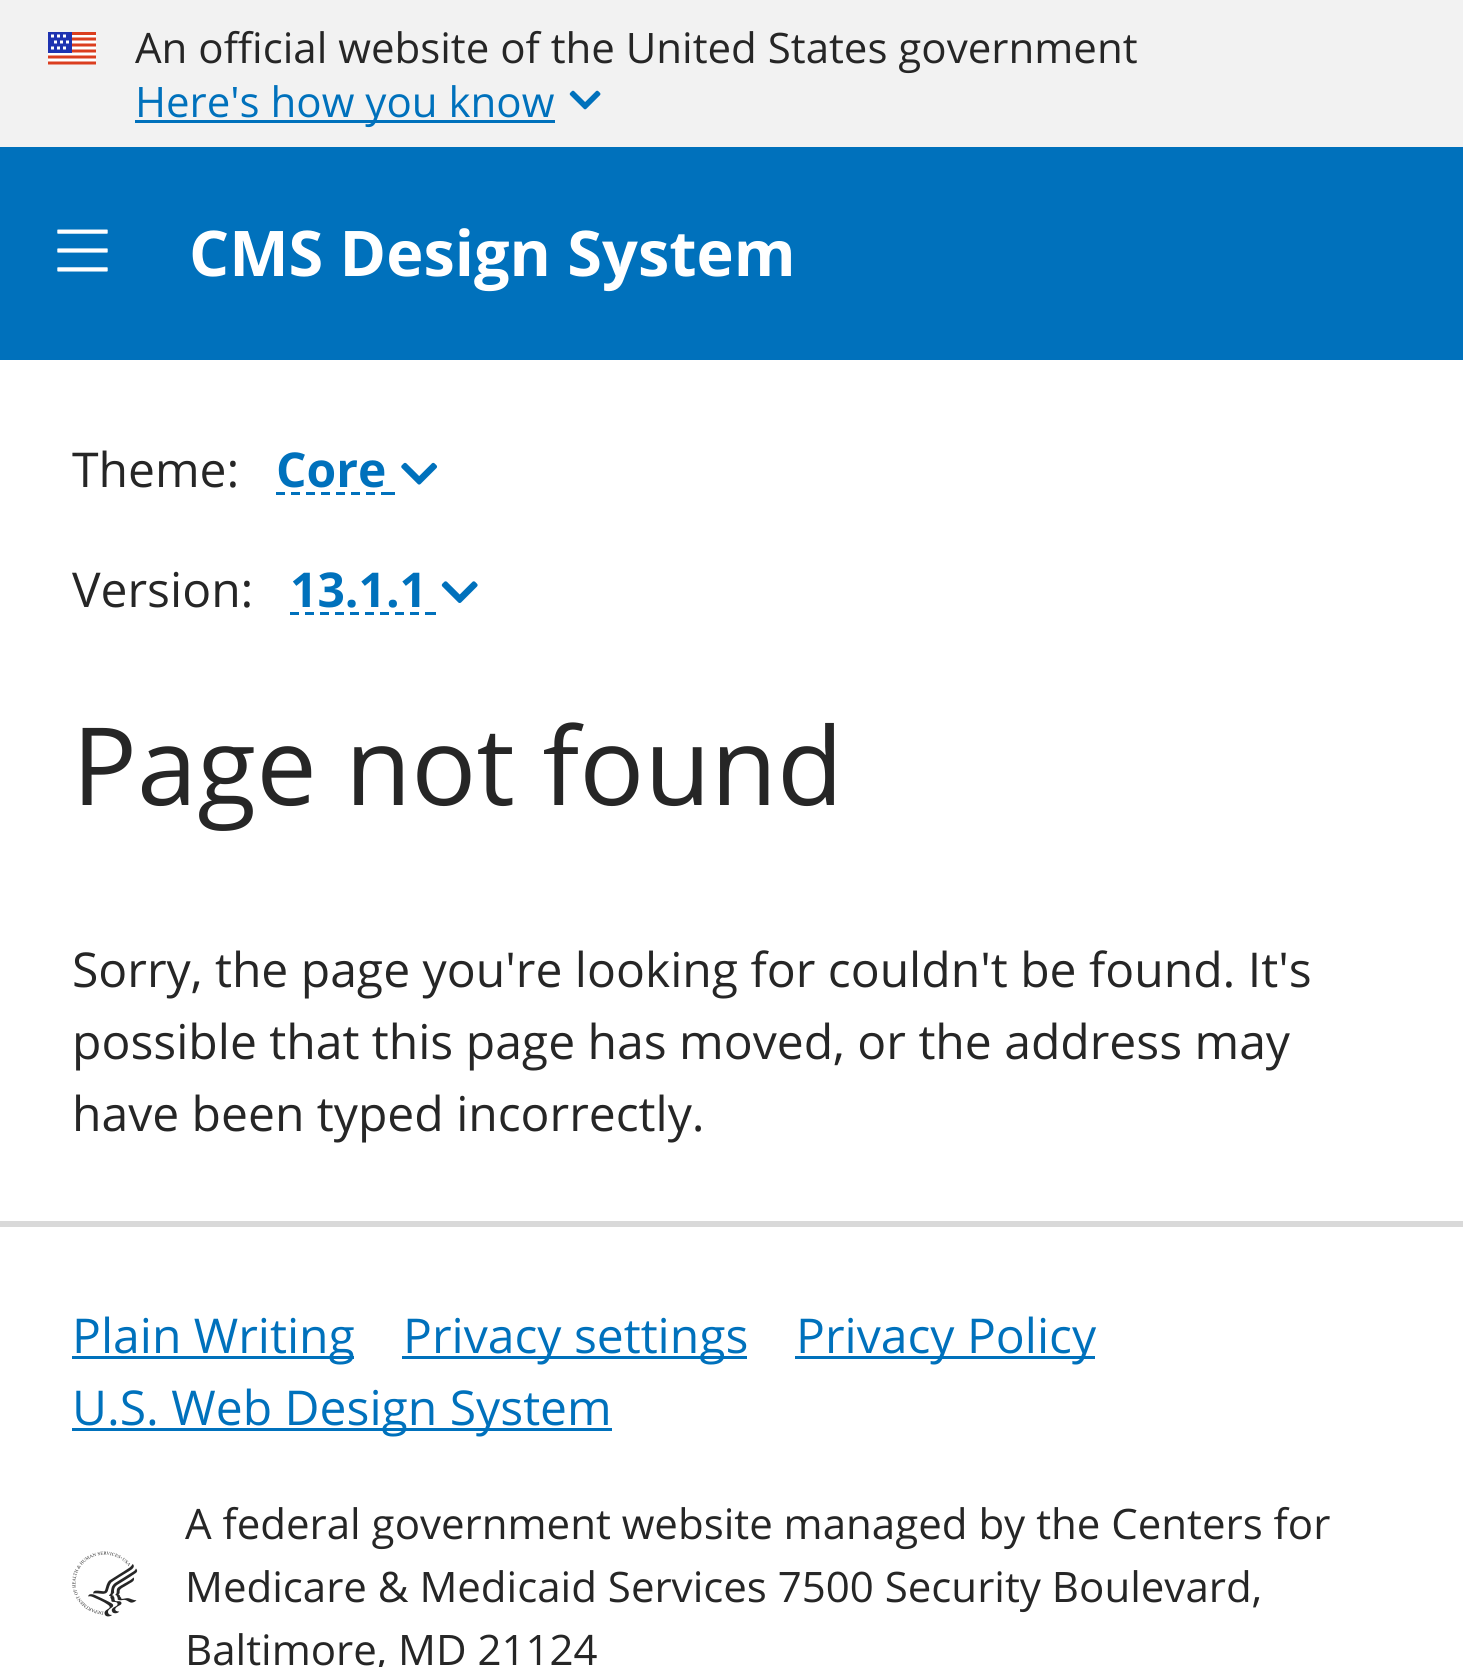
import math
import cairo


def paste(ctx, path, x, y, w, h):
	ctx.save()
	ctx.set_source_surface(cairo.ImageSurface.create_from_png(path), x, y)
	ctx.rectangle(x, y, w, h)
	ctx.fill()
	ctx.restore()

def draw(ctx):
	ctx.set_source_rgb(1, 1, 1)
	ctx.paint()
	ctx.set_source_rgb(0.949, 0.949, 0.949)
	ctx.rectangle(0, 0, 1463, 147)
	ctx.fill()
	paste(ctx, 'media/1.png', 48, 32, 48, 33)
	ctx.select_font_face('Open Sans')
	ctx.set_font_size(42)
	ctx.set_source_rgb(0.149, 0.149, 0.149)
	ctx.move_to(135, 63)
	ctx.show_text('An official website of the United States government')
	ctx.set_source_rgb(0, 0.443, 0.737)
	ctx.rectangle(135, 120, 420, 3)
	ctx.fill()
	ctx.move_to(135, 117)
	ctx.show_text('Here\'s how you know')
	paste(ctx, 'media/2.png', 569, 90, 32, 20)
	ctx.rectangle(0, 147, 1463, 213)
	ctx.fill()
	paste(ctx, 'media/3.png', 57, 229, 51, 43)
	ctx.select_font_face('Open Sans', cairo.FONT_SLANT_NORMAL, cairo.FONT_WEIGHT_BOLD)
	ctx.set_font_size(63)
	ctx.set_source_rgb(1, 1, 1)
	ctx.move_to(189, 276)
	ctx.show_text('CMS Design System')
	ctx.select_font_face('Open Sans')
	ctx.set_font_size(48)
	ctx.set_source_rgb(0.149, 0.149, 0.149)
	ctx.move_to(72, 487)
	ctx.show_text('Theme:')
	ctx.select_font_face('Open Sans', cairo.FONT_SLANT_NORMAL, cairo.FONT_WEIGHT_BOLD)
	ctx.set_source_rgb(0, 0.443, 0.737)
	ctx.move_to(276, 487)
	ctx.show_text('Core')
	ctx.new_path()
	ctx.move_to(276, 493.5)
	ctx.line_to(386, 493.5)
	ctx.set_line_width(3)
	ctx.set_dash([9, 6])
	ctx.stroke()
	paste(ctx, 'media/4.png', 401, 462, 37, 23)
	ctx.rectangle(386, 492, 9, 3)
	ctx.fill()
	ctx.select_font_face('Open Sans')
	ctx.set_source_rgb(0.149, 0.149, 0.149)
	ctx.move_to(72, 607)
	ctx.show_text('Version:')
	ctx.select_font_face('Open Sans', cairo.FONT_SLANT_NORMAL, cairo.FONT_WEIGHT_BOLD)
	ctx.set_source_rgb(0, 0.443, 0.737)
	ctx.move_to(290, 607)
	ctx.show_text('13.1.1')
	ctx.new_path()
	ctx.move_to(290, 613.5)
	ctx.line_to(427, 613.5)
	ctx.stroke()
	paste(ctx, 'media/5.png', 441, 581, 37, 22)
	ctx.rectangle(427, 612, 9, 3)
	ctx.fill()
	ctx.select_font_face('Open Sans')
	ctx.set_font_size(108)
	ctx.set_source_rgb(0.149, 0.149, 0.149)
	ctx.move_to(72, 805)
	ctx.show_text('Page not found')
	ctx.set_font_size(48)
	for x, y, s in [
		(72, 987, 'Sorry, the page you\'re looking for couldn\'t be found. It\'s'),
		(72, 1059, 'possible that this page has moved, or the address may'),
		(72, 1131, 'have been typed incorrectly.'),
	]:
		ctx.move_to(x, y)
		ctx.show_text(s)
	ctx.set_source_rgb(0.851, 0.851, 0.851)
	ctx.rectangle(0, 1221, 1463, 6)
	ctx.fill()
	ctx.set_source_rgb(0, 0.443, 0.737)
	ctx.rectangle(72, 1356, 282, 3)
	ctx.fill()
	ctx.move_to(72, 1353)
	ctx.show_text('Plain Writing')
	ctx.rectangle(402, 1356, 345, 3)
	ctx.fill()
	ctx.move_to(403, 1353)
	ctx.show_text('Privacy settings')
	ctx.rectangle(795, 1356, 300, 3)
	ctx.fill()
	ctx.move_to(796, 1353)
	ctx.show_text('Privacy Policy')
	ctx.rectangle(72, 1428, 540, 3)
	ctx.fill()
	ctx.move_to(72, 1425)
	ctx.show_text('U.S. Web Design System')
	paste(ctx, 'media/6.png', 72, 1551, 66, 66)
	ctx.set_font_size(42)
	ctx.set_source_rgb(0.149, 0.149, 0.149)
	for x, y, s in [
		(185, 1539, 'A federal government website managed by the Centers for'),
		(185, 1602, 'Medicare & Medicaid Services 7500 Security Boulevard,'),
		(185, 1665, 'Baltimore, MD 21124'),
	]:
		ctx.move_to(x, y)
		ctx.show_text(s)


surface = cairo.ImageSurface(cairo.FORMAT_RGB24, 1463, 1667)
ctx = cairo.Context(surface)
options = cairo.FontOptions()
options.set_hint_metrics(cairo.HINT_METRICS_OFF)
options.set_hint_style(cairo.HINT_STYLE_NONE)
ctx.set_font_options(options)
ctx.set_miter_limit(4)
draw(ctx)
surface.write_to_png('image.png')
